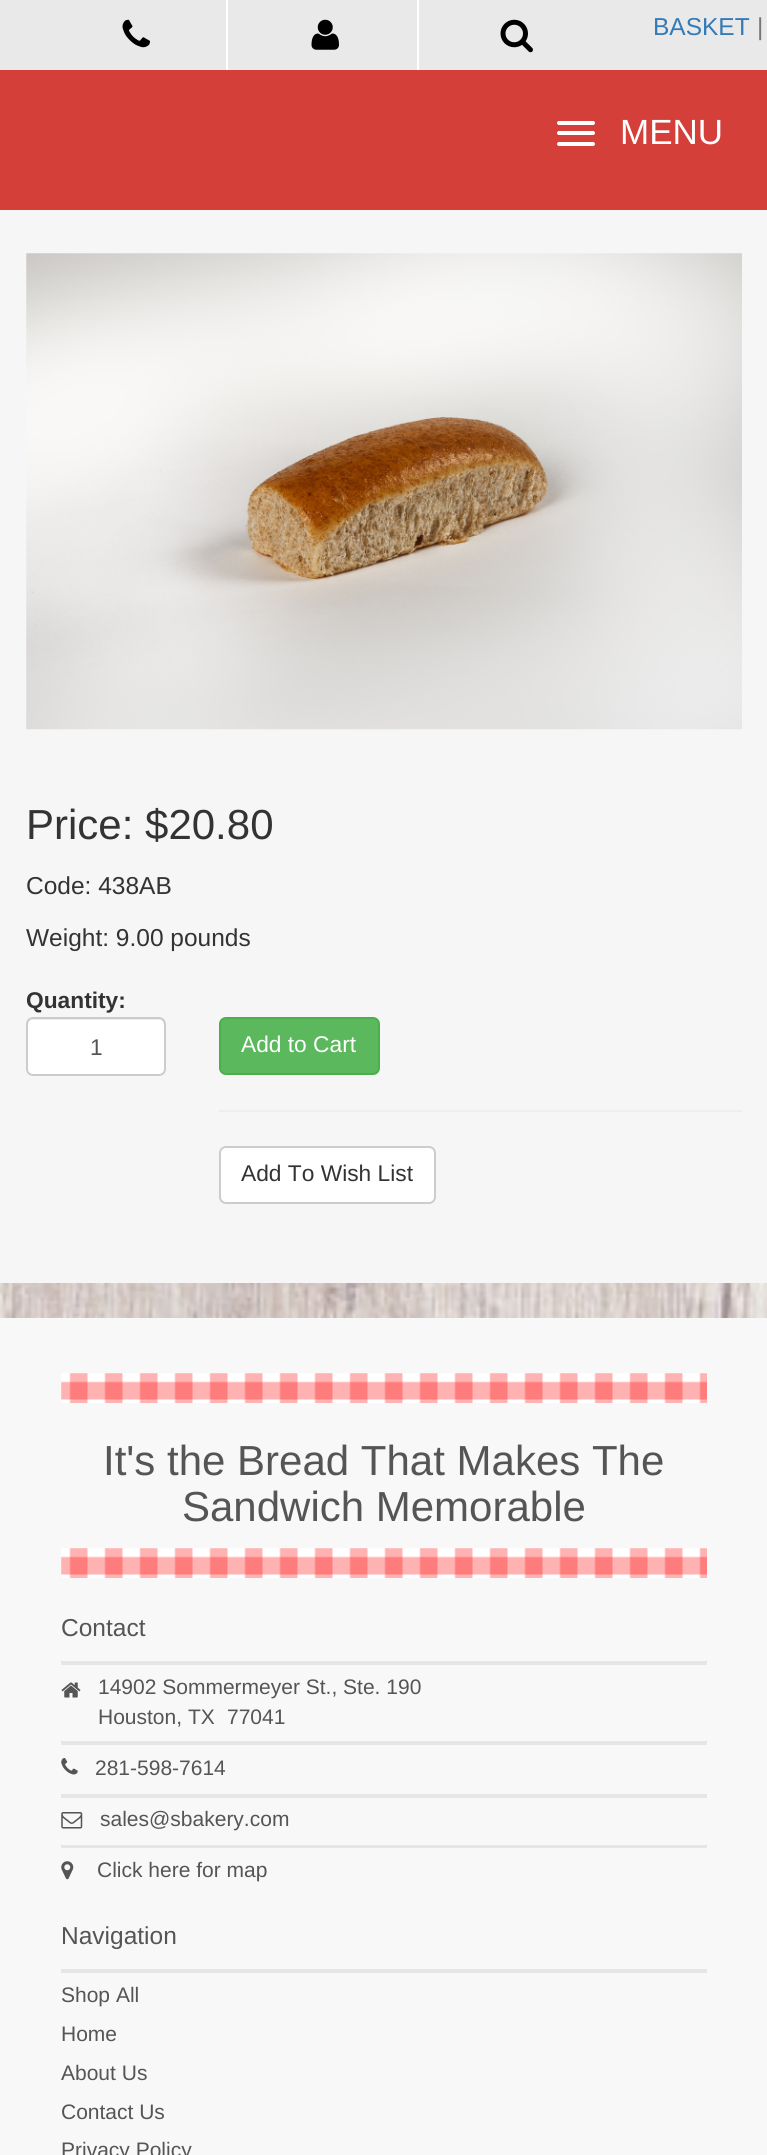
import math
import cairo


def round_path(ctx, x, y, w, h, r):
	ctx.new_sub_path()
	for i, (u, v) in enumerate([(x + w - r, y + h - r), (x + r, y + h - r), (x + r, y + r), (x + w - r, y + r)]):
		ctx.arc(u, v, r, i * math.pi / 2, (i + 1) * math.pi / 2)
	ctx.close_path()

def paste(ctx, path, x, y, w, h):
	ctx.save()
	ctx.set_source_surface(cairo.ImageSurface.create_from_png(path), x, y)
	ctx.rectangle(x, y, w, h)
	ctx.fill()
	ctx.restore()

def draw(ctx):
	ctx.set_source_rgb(1, 1, 1)
	ctx.paint()
	paste(ctx, 'media/1.png', 0, 1283, 767, 35)
	ctx.set_source_rgb(0.831, 0.247, 0.227)
	ctx.rectangle(0, 70, 767, 140)
	ctx.fill()
	ctx.set_source_rgb(0.914, 0.914, 0.914)
	ctx.rectangle(0, 0, 767, 70)
	ctx.fill()
	ctx.set_source_rgb(1, 1, 1)
	ctx.rectangle(226, 0, 2, 70)
	ctx.fill()
	paste(ctx, 'media/2.png', 122, 19, 28, 29)
	ctx.rectangle(417, 0, 2, 70)
	ctx.fill()
	paste(ctx, 'media/3.png', 311, 19, 28, 31)
	paste(ctx, 'media/4.png', 500, 19, 33, 34)
	ctx.select_font_face('Liberation Sans')
	ctx.set_font_size(24.5)
	ctx.set_source_rgb(0.2, 0.478, 0.718)
	ctx.move_to(653, 35)
	ctx.show_text('BASKET')
	ctx.set_source_rgb(0.467, 0.467, 0.467)
	ctx.move_to(757, 35)
	ctx.show_text('|')
	ctx.set_source_rgb(1, 1, 1)
	round_path(ctx, 557, 121, 38, 4, 2)
	ctx.fill()
	round_path(ctx, 557, 131, 38, 4, 2)
	ctx.fill()
	round_path(ctx, 557, 142, 38, 4, 2)
	ctx.fill()
	ctx.set_font_size(35)
	ctx.move_to(620, 144)
	ctx.show_text('MENU')
	ctx.set_source_rgb(0.961, 0.961, 0.961)
	ctx.rectangle(0, 210, 767, 1073)
	ctx.fill()
	paste(ctx, 'media/5.png', 26, 253, 716, 477)
	ctx.set_font_size(42)
	ctx.set_source_rgb(0.2, 0.2, 0.2)
	ctx.move_to(26, 839)
	ctx.show_text('Price: $20.80')
	ctx.set_font_size(24.5)
	ctx.move_to(26, 894)
	ctx.show_text('Code: 438AB')
	ctx.move_to(26, 946)
	ctx.show_text('Weight: 9.00 pounds')
	ctx.select_font_face('Liberation Sans', cairo.FONT_SLANT_NORMAL, cairo.FONT_WEIGHT_BOLD)
	ctx.set_font_size(22.75)
	ctx.move_to(26, 1008)
	ctx.show_text('Quantity:')
	ctx.set_source_rgb(1, 1, 1)
	round_path(ctx, 26, 1017, 140, 59, 7)
	ctx.fill()
	ctx.set_source_rgb(0.925, 0.925, 0.925)
	ctx.new_path()
	ctx.move_to(33, 1020)
	ctx.line_to(159, 1020)
	ctx.curve_to(162, 1020, 164, 1023, 164, 1026)
	ctx.line_to(164, 1071)
	ctx.line_to(163, 1074)
	ctx.curve_to(164, 1073, 165, 1071, 165, 1070)
	ctx.line_to(165, 1024)
	ctx.curve_to(165, 1021, 163, 1019, 160, 1019)
	ctx.line_to(33, 1019)
	ctx.curve_to(30, 1019, 28, 1021, 28, 1024)
	ctx.line_to(28, 1026)
	ctx.curve_to(28, 1023, 30, 1020, 33, 1020)
	ctx.close_path()
	ctx.fill()
	round_path(ctx, 27, 1018, 138, 57, 6)
	ctx.set_source_rgb(0.8, 0.8, 0.8)
	ctx.stroke()
	ctx.select_font_face('Liberation Sans')
	ctx.set_source_rgb(0.333, 0.333, 0.333)
	ctx.move_to(90, 1055)
	ctx.show_text('1')
	ctx.set_source_rgb(0.361, 0.722, 0.361)
	round_path(ctx, 220, 1018, 159, 56, 6)
	ctx.fill_preserve()
	ctx.set_source_rgb(0.298, 0.682, 0.298)
	ctx.stroke()
	ctx.set_source_rgb(1, 1, 1)
	ctx.move_to(241, 1052)
	ctx.show_text('Add to Cart')
	ctx.set_source_rgb(0.933, 0.933, 0.933)
	ctx.rectangle(219, 1110, 523, 2)
	ctx.fill()
	ctx.set_source_rgb(1, 1, 1)
	round_path(ctx, 220, 1147, 215, 56, 6)
	ctx.fill_preserve()
	ctx.set_source_rgb(0.8, 0.8, 0.8)
	ctx.stroke()
	ctx.set_source_rgb(0.2, 0.2, 0.2)
	ctx.move_to(241, 1181)
	ctx.show_text('Add To Wish List')
	ctx.set_source_rgb(0.969, 0.969, 0.969)
	ctx.rectangle(0, 1318, 767, 837)
	ctx.fill()
	paste(ctx, 'media/6.png', 61, 1373, 646, 30)
	ctx.set_font_size(42)
	ctx.set_source_rgb(0.333, 0.333, 0.333)
	ctx.move_to(103, 1475)
	ctx.show_text('It\'s the Bread That Makes The')
	ctx.move_to(182, 1521)
	ctx.show_text('Sandwich Memorable')
	paste(ctx, 'media/7.png', 61, 1548, 646, 30)
	ctx.set_font_size(24.5)
	ctx.move_to(61, 1636)
	ctx.show_text('Contact')
	ctx.set_source_rgb(0.902, 0.902, 0.902)
	ctx.rectangle(61, 1661, 646, 4)
	ctx.fill()
	paste(ctx, 'media/8.png', 61, 1682, 20, 16)
	ctx.set_font_size(21)
	ctx.set_source_rgb(0.333, 0.333, 0.333)
	for x, y, s in [
		(98, 1694, '14902 Sommermeyer St., Ste. 190'),
		(98, 1724, 'Houston, TX'),
		(227, 1724, '77041'),
	]:
		ctx.move_to(x, y)
		ctx.show_text(s)
	ctx.set_source_rgb(0.902, 0.902, 0.902)
	ctx.rectangle(61, 1741, 646, 4)
	ctx.fill()
	paste(ctx, 'media/9.png', 61, 1758, 17, 17)
	ctx.set_source_rgb(0.333, 0.333, 0.333)
	ctx.move_to(95, 1775)
	ctx.show_text('281-598-7614')
	ctx.set_source_rgb(0.902, 0.902, 0.902)
	ctx.rectangle(61, 1794, 646, 4)
	ctx.fill()
	paste(ctx, 'media/10.png', 61, 1812, 22, 17)
	ctx.set_source_rgb(0.333, 0.333, 0.333)
	ctx.move_to(100, 1826)
	ctx.show_text('sales@sbakery.com')
	ctx.set_source_rgb(0.902, 0.902, 0.902)
	ctx.rectangle(61, 1845, 646, 3)
	ctx.fill()
	paste(ctx, 'media/11.png', 61, 1861, 13, 19)
	ctx.set_source_rgb(0.333, 0.333, 0.333)
	ctx.move_to(97, 1877)
	ctx.show_text('Click here for map')
	ctx.set_font_size(24.5)
	ctx.move_to(61, 1944)
	ctx.show_text('Navigation')
	ctx.set_source_rgb(0.902, 0.902, 0.902)
	ctx.rectangle(61, 1969, 646, 4)
	ctx.fill()
	ctx.set_font_size(21)
	ctx.set_source_rgb(0.333, 0.333, 0.333)
	for x, y, s in [
		(61, 2002, 'Shop All'),
		(61, 2041, 'Home'),
		(61, 2080, 'About Us'),
		(61, 2119, 'Contact Us'),
		(61, 2157, 'Privacy Policy'),
	]:
		ctx.move_to(x, y)
		ctx.show_text(s)


surface = cairo.ImageSurface(cairo.FORMAT_RGB24, 767, 2155)
ctx = cairo.Context(surface)
options = cairo.FontOptions()
options.set_hint_metrics(cairo.HINT_METRICS_OFF)
options.set_hint_style(cairo.HINT_STYLE_NONE)
ctx.set_font_options(options)
ctx.set_miter_limit(4)
draw(ctx)
surface.write_to_png('image.png')
